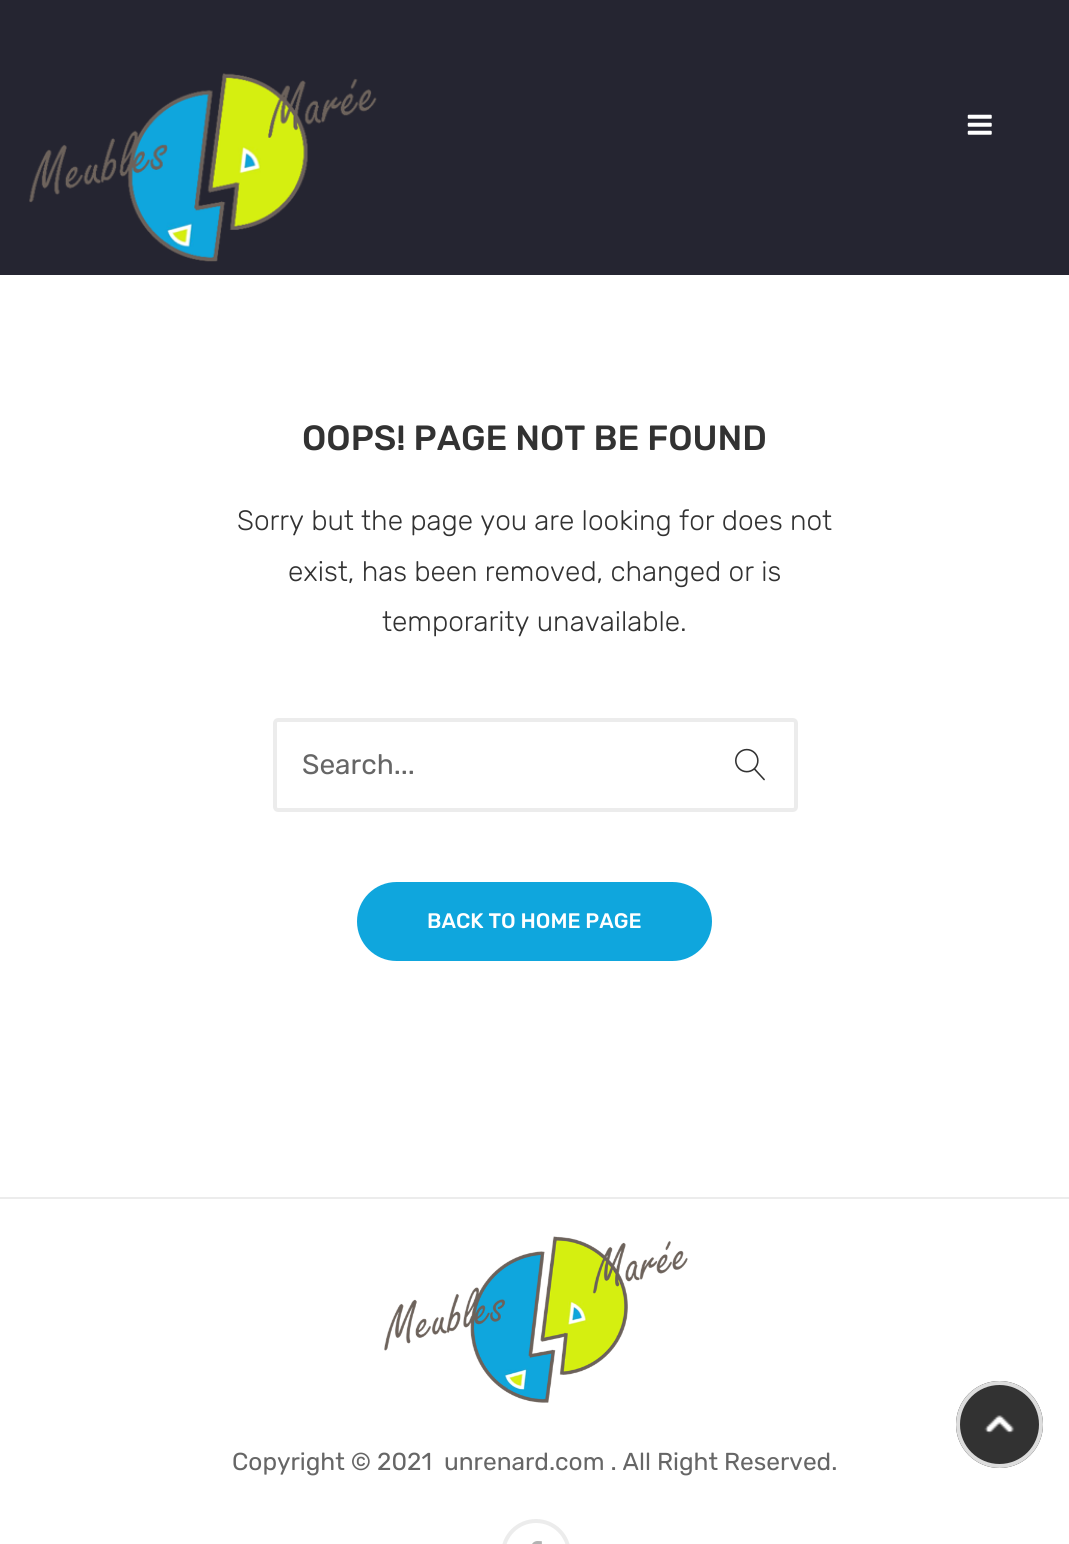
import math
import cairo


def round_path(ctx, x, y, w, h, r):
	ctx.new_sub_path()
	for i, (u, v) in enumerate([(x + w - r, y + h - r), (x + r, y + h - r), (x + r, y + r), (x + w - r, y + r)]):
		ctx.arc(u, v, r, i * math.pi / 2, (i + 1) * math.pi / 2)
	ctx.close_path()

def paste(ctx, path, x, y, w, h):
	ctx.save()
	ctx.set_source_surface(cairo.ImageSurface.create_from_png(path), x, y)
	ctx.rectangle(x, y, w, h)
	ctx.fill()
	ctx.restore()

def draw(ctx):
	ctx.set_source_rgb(1, 1, 1)
	ctx.paint()
	ctx.set_source_rgb(0.145, 0.145, 0.192)
	ctx.rectangle(0, 0, 1069, 275)
	ctx.fill()
	paste(ctx, 'media/1.png', 29, 73, 348, 189)
	paste(ctx, 'media/2.png', 967, 114, 25, 21)
	ctx.select_font_face('Rubik Medium')
	ctx.set_font_size(35)
	ctx.set_source_rgb(0.196, 0.196, 0.196)
	ctx.move_to(302, 450)
	ctx.show_text('OOPS! PAGE NOT BE FOUND')
	ctx.select_font_face('Rubik Light')
	ctx.set_font_size(28)
	for x, y, s in [
		(237, 530, 'Sorry but the page you are looking for does not'),
		(288, 581, 'exist, has been removed, changed or is'),
		(382, 631, 'temporarity unavailable.'),
	]:
		ctx.move_to(x, y)
		ctx.show_text(s)
	round_path(ctx, 275, 720, 521, 90, 3)
	ctx.set_source_rgb(0.922, 0.922, 0.922)
	ctx.set_line_width(4)
	ctx.stroke()
	ctx.select_font_face('Rubik')
	ctx.set_source_rgb(0.4, 0.4, 0.4)
	ctx.move_to(302, 774)
	ctx.show_text('Search...')
	paste(ctx, 'media/3.png', 735, 748, 30, 33)
	ctx.set_source_rgb(0.059, 0.651, 0.867)
	round_path(ctx, 357, 882, 355, 79, 39.5)
	ctx.fill()
	ctx.select_font_face('Rubik Medium')
	ctx.set_font_size(21)
	ctx.set_source_rgb(1, 1, 1)
	ctx.move_to(427, 928)
	ctx.show_text('BACK TO HOME PAGE')
	ctx.set_source_rgb(0.922, 0.922, 0.922)
	ctx.rectangle(0, 1197, 1069, 2)
	ctx.fill()
	paste(ctx, 'media/4.png', 384, 1236, 304, 167)
	ctx.select_font_face('Rubik')
	ctx.set_font_size(24.5)
	ctx.set_source_rgb(0.4, 0.4, 0.4)
	ctx.move_to(232, 1470)
	ctx.show_text('Copyright © 2021')
	ctx.move_to(444, 1470)
	ctx.show_text('unrenard.com . All Right Reserved.')
	round_path(ctx, 503, 1521, 66, 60, 33)
	ctx.set_source_rgb(0.922, 0.922, 0.922)
	ctx.stroke()
	paste(ctx, 'media/5.png', 532, 1541, 10, 3)
	ctx.set_source_rgb(0.196, 0.196, 0.196)
	ctx.arc(999.5, 1424.5, 43.5, 0, 2 * math.pi)
	ctx.fill()
	paste(ctx, 'media/6.png', 984, 1415, 31, 19)
	ctx.arc(999.5, 1424.5, 41.5, 0, 2 * math.pi)
	ctx.set_source_rgb(0.867, 0.867, 0.867)
	ctx.stroke()


surface = cairo.ImageSurface(cairo.FORMAT_RGB24, 1069, 1544)
ctx = cairo.Context(surface)
options = cairo.FontOptions()
options.set_hint_metrics(cairo.HINT_METRICS_OFF)
options.set_hint_style(cairo.HINT_STYLE_NONE)
ctx.set_font_options(options)
ctx.set_miter_limit(4)
draw(ctx)
surface.write_to_png('image.png')
